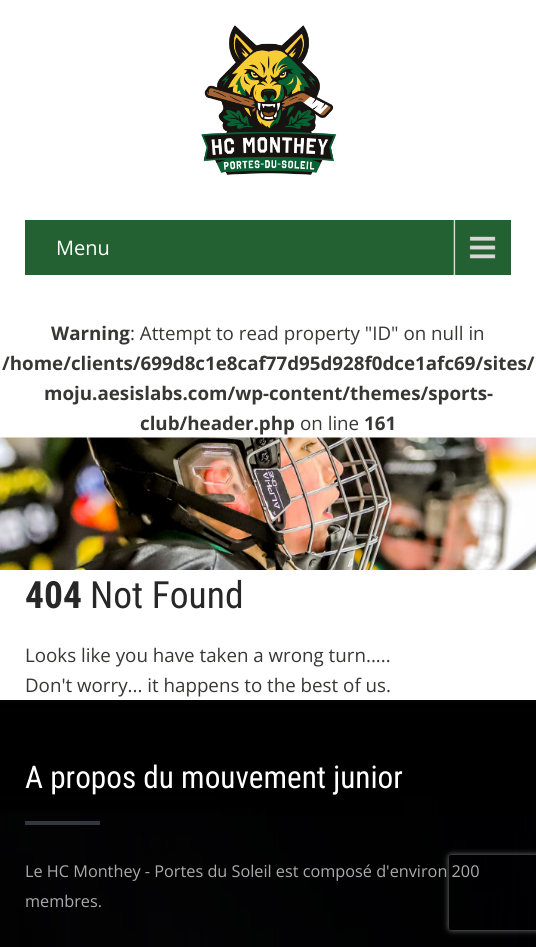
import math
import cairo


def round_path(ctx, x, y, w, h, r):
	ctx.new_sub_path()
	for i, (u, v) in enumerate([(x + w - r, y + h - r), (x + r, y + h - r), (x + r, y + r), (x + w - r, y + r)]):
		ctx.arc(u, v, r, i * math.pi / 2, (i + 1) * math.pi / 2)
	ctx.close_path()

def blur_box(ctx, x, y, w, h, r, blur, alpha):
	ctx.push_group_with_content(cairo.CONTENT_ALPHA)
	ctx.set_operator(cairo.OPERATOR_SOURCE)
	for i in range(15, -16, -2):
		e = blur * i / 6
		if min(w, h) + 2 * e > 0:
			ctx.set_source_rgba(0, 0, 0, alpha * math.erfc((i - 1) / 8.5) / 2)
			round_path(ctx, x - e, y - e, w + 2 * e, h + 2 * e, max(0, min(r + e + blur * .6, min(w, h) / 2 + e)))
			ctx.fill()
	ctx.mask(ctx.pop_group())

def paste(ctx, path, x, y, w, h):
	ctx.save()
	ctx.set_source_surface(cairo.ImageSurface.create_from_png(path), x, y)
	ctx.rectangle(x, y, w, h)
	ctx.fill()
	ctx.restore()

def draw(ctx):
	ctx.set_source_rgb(1, 1, 1)
	ctx.paint()
	paste(ctx, 'media/1.png', 201, 25, 136, 150)
	ctx.set_source_rgb(0.141, 0.38, 0.196)
	ctx.rectangle(25, 220, 486, 55)
	ctx.fill()
	paste(ctx, 'media/2.png', 453, 220, 43, 55)
	ctx.select_font_face('Open Sans')
	ctx.set_font_size(20)
	ctx.set_source_rgb(1, 1, 1)
	ctx.move_to(56, 255)
	ctx.show_text('Menu')
	ctx.select_font_face('Open Sans', cairo.FONT_SLANT_NORMAL, cairo.FONT_WEIGHT_BOLD)
	ctx.set_font_size(18.75)
	ctx.set_source_rgb(0.216, 0.216, 0.208)
	ctx.move_to(51, 340)
	ctx.show_text('Warning')
	ctx.select_font_face('Open Sans')
	ctx.move_to(130, 340)
	ctx.show_text(': Attempt to read property "ID" on null in')
	ctx.select_font_face('Open Sans', cairo.FONT_SLANT_NORMAL, cairo.FONT_WEIGHT_BOLD)
	for x, y, s in [
		(2, 370, '/home/clients/699d8c1e8caf77d95d928f0dce1afc69/sites/'),
		(44, 400, 'moju.aesislabs.com/wp-content/themes/sports-'),
		(140, 430, 'club/header.php'),
	]:
		ctx.move_to(x, y)
		ctx.show_text(s)
	ctx.select_font_face('Open Sans')
	ctx.move_to(300, 430)
	ctx.show_text('on line')
	ctx.select_font_face('Open Sans', cairo.FONT_SLANT_NORMAL, cairo.FONT_WEIGHT_BOLD)
	ctx.move_to(364, 430)
	ctx.show_text('161')
	paste(ctx, 'media/3.png', 0, 437, 536, 133)
	ctx.select_font_face('Roboto Condensed', cairo.FONT_SLANT_NORMAL, cairo.FONT_WEIGHT_BOLD)
	ctx.set_font_size(37.5)
	ctx.set_source_rgb(0.153, 0.153, 0.153)
	ctx.move_to(25, 608)
	ctx.show_text('404')
	ctx.select_font_face('Roboto Condensed')
	ctx.move_to(90, 608)
	ctx.show_text('Not Found')
	ctx.select_font_face('Open Sans')
	ctx.set_font_size(18.75)
	ctx.set_source_rgb(0.216, 0.216, 0.208)
	ctx.move_to(25, 662)
	ctx.show_text('Looks like you have taken a wrong turn.....')
	ctx.move_to(25, 692)
	ctx.show_text('Don\'t worry... it happens to the best of us.')
	paste(ctx, 'media/4.png', 0, 700, 536, 247)
	ctx.select_font_face('Roboto Condensed')
	ctx.set_font_size(31.25)
	ctx.set_source_rgb(1, 1, 1)
	ctx.move_to(25, 788)
	ctx.show_text('A propos du mouvement junior')
	ctx.set_source_rgb(0.2, 0.22, 0.251)
	ctx.rectangle(25, 821, 75, 4)
	ctx.fill()
	ctx.select_font_face('Open Sans')
	ctx.set_font_size(16.25)
	ctx.set_source_rgb(0.671, 0.671, 0.671)
	ctx.move_to(25, 877)
	ctx.show_text('Le HC Monthey - Portes du Soleil est composé d\'environ 200')
	ctx.move_to(25, 907)
	ctx.show_text('membres.')
	ctx.save()
	ctx.set_fill_rule(cairo.FILL_RULE_EVEN_ODD)
	ctx.new_path()
	ctx.move_to(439, 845)
	ctx.line_to(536, 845)
	ctx.line_to(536, 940)
	ctx.line_to(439, 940)
	ctx.close_path()
	ctx.move_to(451.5, 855)
	ctx.line_to(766.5, 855)
	ctx.curve_to(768, 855, 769, 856, 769, 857.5)
	ctx.line_to(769, 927.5)
	ctx.curve_to(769, 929, 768, 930, 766.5, 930)
	ctx.line_to(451.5, 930)
	ctx.curve_to(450, 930, 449, 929, 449, 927.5)
	ctx.line_to(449, 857.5)
	ctx.curve_to(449, 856, 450, 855, 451.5, 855)
	ctx.close_path()
	ctx.clip()
	ctx.set_source_rgb(0.502, 0.502, 0.502)
	blur_box(ctx, 449, 855, 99, 75, 2.5, 3, 1)
	ctx.restore()


surface = cairo.ImageSurface(cairo.FORMAT_RGB24, 536, 947)
ctx = cairo.Context(surface)
options = cairo.FontOptions()
options.set_hint_metrics(cairo.HINT_METRICS_OFF)
options.set_hint_style(cairo.HINT_STYLE_NONE)
ctx.set_font_options(options)
ctx.set_miter_limit(4)
draw(ctx)
surface.write_to_png('image.png')
